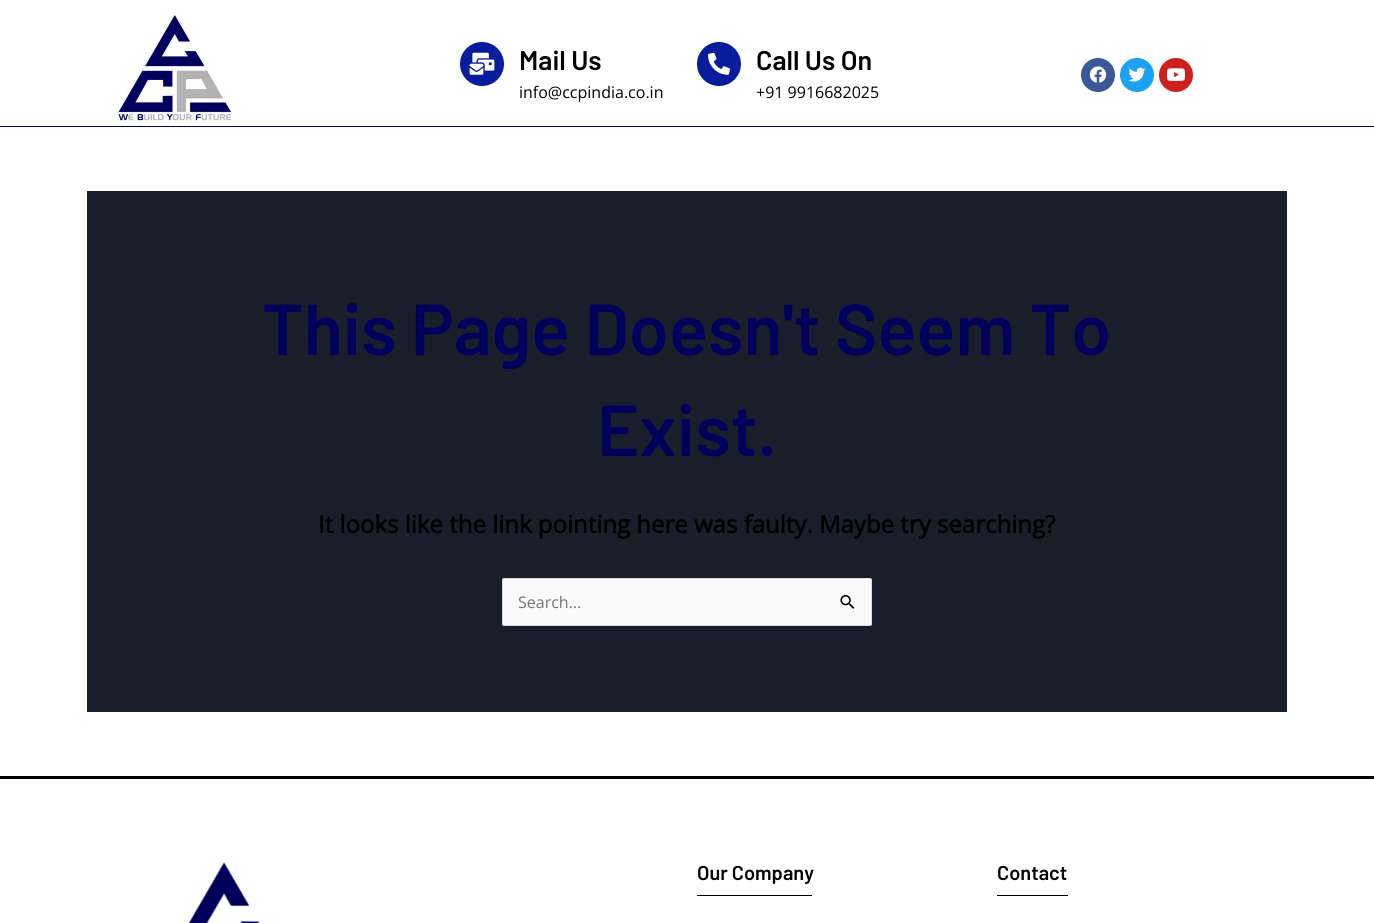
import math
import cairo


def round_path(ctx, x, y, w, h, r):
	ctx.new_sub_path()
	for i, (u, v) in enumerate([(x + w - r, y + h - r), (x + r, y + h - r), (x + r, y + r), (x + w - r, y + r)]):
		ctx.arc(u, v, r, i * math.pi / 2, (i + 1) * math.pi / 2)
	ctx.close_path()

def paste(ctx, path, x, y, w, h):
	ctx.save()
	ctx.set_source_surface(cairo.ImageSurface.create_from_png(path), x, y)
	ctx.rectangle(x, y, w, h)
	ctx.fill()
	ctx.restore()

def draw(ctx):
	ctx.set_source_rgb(1, 1, 1)
	ctx.paint()
	paste(ctx, 'media/1.png', 118, 14, 115, 108)
	ctx.set_source_rgb(0.031, 0.114, 0.62)
	ctx.arc(482, 64, 22, 0, 2 * math.pi)
	ctx.fill()
	paste(ctx, 'media/2.png', 469, 52, 26, 23)
	ctx.select_font_face('Barlow SemiBold')
	ctx.set_font_size(27)
	ctx.set_source_rgb(0, 0, 0)
	ctx.move_to(519, 70)
	ctx.show_text('Mail Us')
	ctx.select_font_face('Open Sans')
	ctx.set_font_size(16)
	ctx.move_to(519, 98)
	ctx.show_text('info@ccpindia.co.in')
	ctx.set_source_rgb(0.031, 0.114, 0.62)
	ctx.new_path()
	ctx.arc(719, 64, 22, 0, 2 * math.pi)
	ctx.fill()
	paste(ctx, 'media/3.png', 708, 52, 22, 23)
	ctx.select_font_face('Barlow SemiBold')
	ctx.set_font_size(27)
	ctx.set_source_rgb(0, 0, 0)
	ctx.move_to(756, 70)
	ctx.show_text('Call Us On')
	ctx.select_font_face('Open Sans')
	ctx.set_font_size(16)
	ctx.move_to(756, 98)
	ctx.show_text('+91 9916682025')
	ctx.set_source_rgb(0.231, 0.349, 0.596)
	ctx.new_path()
	ctx.arc(1098, 75, 17, 0, 2 * math.pi)
	ctx.fill()
	paste(ctx, 'media/4.png', 1089, 66, 18, 17)
	ctx.set_source_rgb(0.114, 0.631, 0.949)
	ctx.arc(1137, 75, 17, 0, 2 * math.pi)
	ctx.fill()
	paste(ctx, 'media/5.png', 1128, 67, 18, 15)
	ctx.set_source_rgb(0.804, 0.125, 0.122)
	ctx.arc(1176, 75, 17, 0, 2 * math.pi)
	ctx.fill()
	paste(ctx, 'media/6.png', 1166, 68, 20, 13)
	ctx.set_source_rgb(0.016, 0.016, 0.361)
	ctx.rectangle(0, 126, 1374, 1)
	ctx.fill()
	ctx.set_source_rgb(0.094, 0.122, 0.165)
	ctx.rectangle(87, 191, 1200, 521)
	ctx.fill()
	ctx.select_font_face('Barlow SemiBold')
	ctx.set_font_size(72)
	ctx.set_source_rgb(0, 0, 0.361)
	ctx.move_to(262, 355)
	ctx.show_text('This Page Doesn\'t Seem To')
	ctx.move_to(597, 456)
	ctx.show_text('Exist.')
	ctx.select_font_face('Open Sans', cairo.FONT_SLANT_NORMAL, cairo.FONT_WEIGHT_BOLD)
	ctx.set_font_size(24)
	ctx.set_source_rgb(0, 0, 0)
	ctx.move_to(318, 533)
	ctx.show_text('It looks like the link pointing here was faulty. Maybe try searching?')
	ctx.set_source_rgb(0.98, 0.98, 0.98)
	round_path(ctx, 502.5, 578.5, 369, 47, 1.5)
	ctx.fill_preserve()
	ctx.set_source_rgb(0.867, 0.867, 0.867)
	ctx.set_line_width(1)
	ctx.stroke()
	ctx.select_font_face('Open Sans')
	ctx.set_font_size(16)
	ctx.set_source_rgb(0.459, 0.459, 0.459)
	ctx.move_to(518, 608)
	ctx.show_text('Search...')
	paste(ctx, 'media/7.png', 840, 595, 15, 14)
	ctx.set_source_rgb(0, 0, 0)
	ctx.rectangle(0, 776, 1374, 3)
	ctx.fill()
	paste(ctx, 'media/8.png', 188, 862, 72, 61)
	ctx.select_font_face('Barlow SemiBold')
	ctx.set_font_size(20)
	ctx.move_to(697, 880)
	ctx.show_text('Our Company')
	ctx.rectangle(697, 895, 115, 1)
	ctx.fill()
	ctx.move_to(997, 880)
	ctx.show_text('Contact')
	ctx.rectangle(997, 895, 71, 1)
	ctx.fill()


surface = cairo.ImageSurface(cairo.FORMAT_RGB24, 1374, 923)
ctx = cairo.Context(surface)
options = cairo.FontOptions()
options.set_hint_metrics(cairo.HINT_METRICS_OFF)
options.set_hint_style(cairo.HINT_STYLE_NONE)
ctx.set_font_options(options)
ctx.set_miter_limit(4)
draw(ctx)
surface.write_to_png('image.png')
